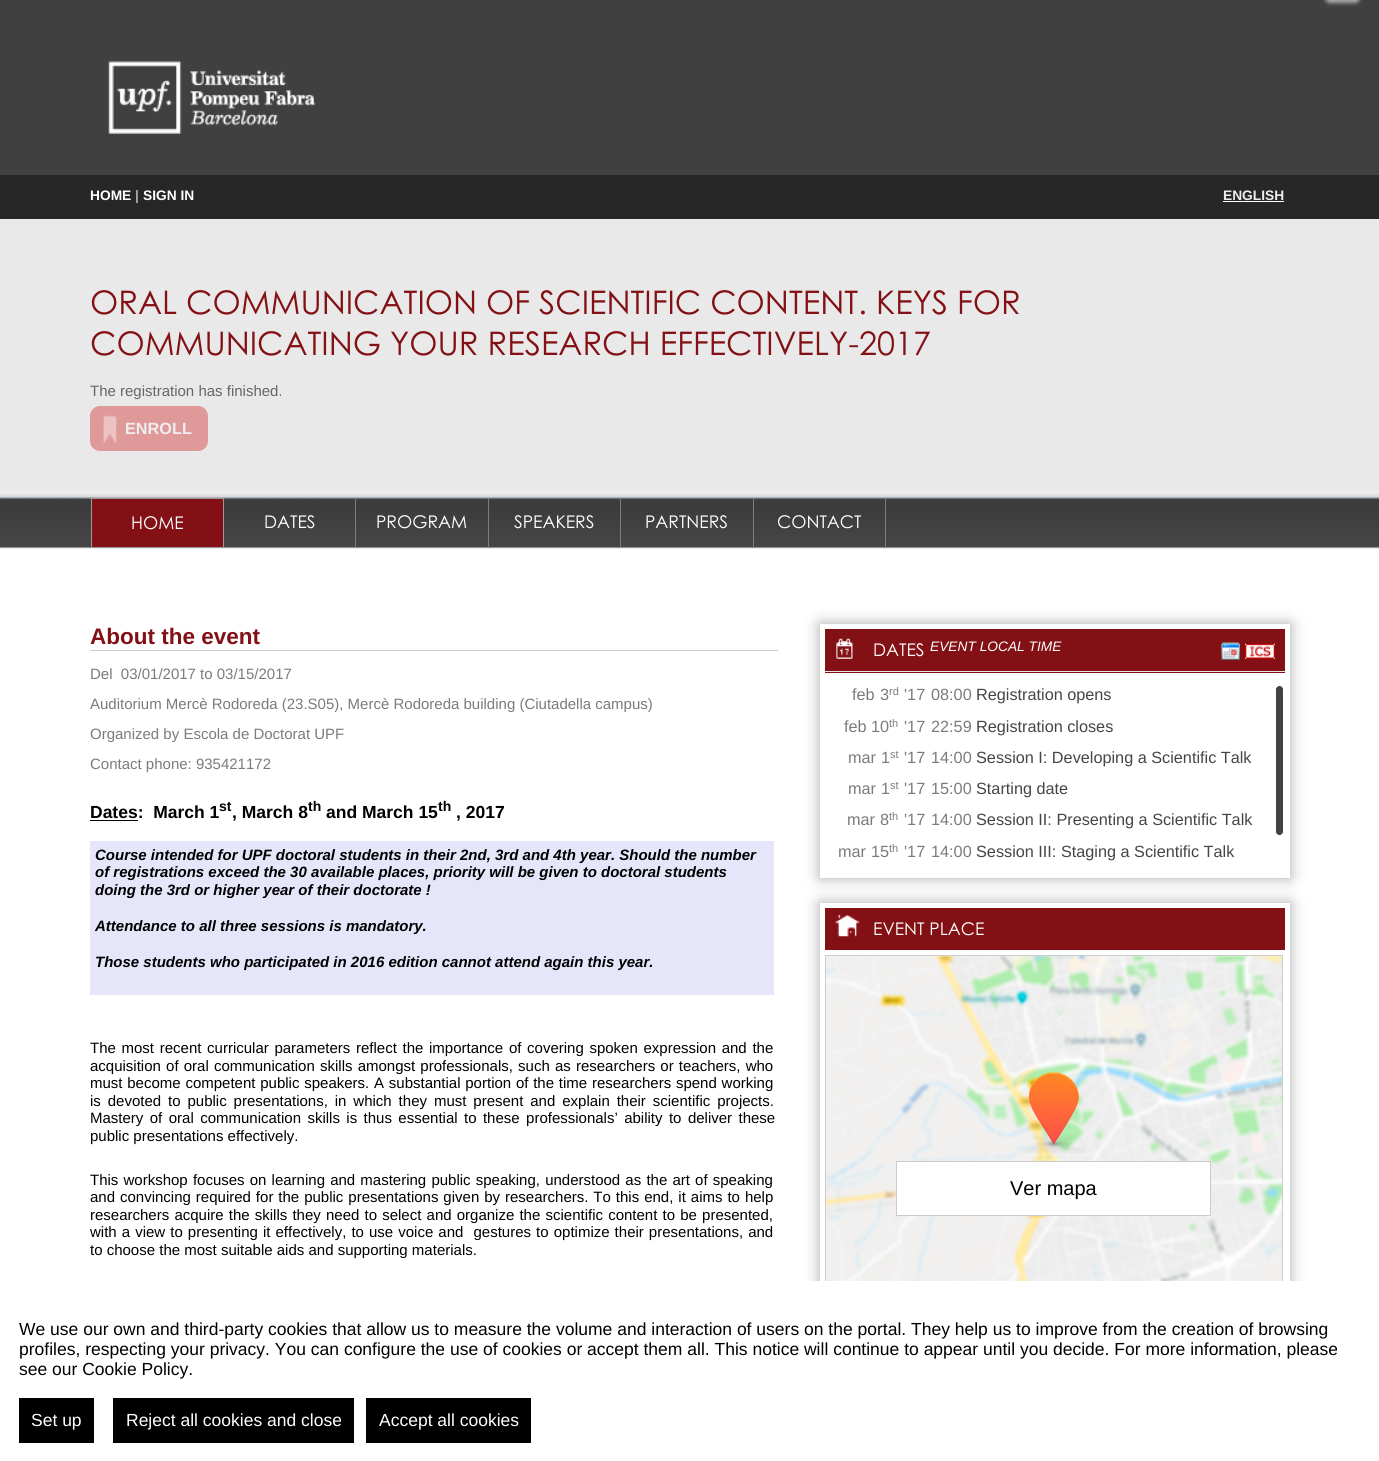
import math
import cairo


def write_spaced(ctx, x, y, s, letter, word):
	ctx.move_to(x, y)
	for ch in s:
		ctx.show_text(ch)
		ctx.rel_move_to(letter + word * (ch == ' '), 0)

def round_path(ctx, x, y, w, h, r):
	ctx.new_sub_path()
	for i, (u, v) in enumerate([(x + w - r, y + h - r), (x + r, y + h - r), (x + r, y + r), (x + w - r, y + r)]):
		ctx.arc(u, v, r, i * math.pi / 2, (i + 1) * math.pi / 2)
	ctx.close_path()

def blur_box(ctx, x, y, w, h, r, blur, alpha):
	ctx.push_group_with_content(cairo.CONTENT_ALPHA)
	ctx.set_operator(cairo.OPERATOR_SOURCE)
	for i in range(15, -16, -2):
		e = blur * i / 6
		if min(w, h) + 2 * e > 0:
			ctx.set_source_rgba(0, 0, 0, alpha * math.erfc((i - 1) / 8.5) / 2)
			round_path(ctx, x - e, y - e, w + 2 * e, h + 2 * e, max(0, min(r + e + blur * .6, min(w, h) / 2 + e)))
			ctx.fill()
	ctx.mask(ctx.pop_group())

def paste(ctx, path, x, y, w, h):
	ctx.save()
	ctx.set_source_surface(cairo.ImageSurface.create_from_png(path), x, y)
	ctx.rectangle(x, y, w, h)
	ctx.fill()
	ctx.restore()

def draw(ctx):
	ctx.set_source_rgb(0.914, 0.914, 0.914)
	ctx.paint()
	ctx.set_source_rgb(0.251, 0.251, 0.251)
	ctx.rectangle(0, 0, 1379, 175)
	ctx.fill()
	paste(ctx, 'media/1.png', 108, 61, 208, 73)
	ctx.set_source_rgb(0.667, 0.667, 0.667)
	blur_box(ctx, 1325, -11, 35, 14, 5, 2, 1)
	ctx.set_source_rgb(0.153, 0.153, 0.153)
	ctx.rectangle(0, 175, 1379, 44)
	ctx.fill()
	ctx.select_font_face('Liberation Sans', cairo.FONT_SLANT_NORMAL, cairo.FONT_WEIGHT_BOLD)
	ctx.set_font_size(13.75)
	ctx.set_source_rgb(1, 1, 1)
	ctx.move_to(90, 200)
	ctx.show_text('HOME')
	ctx.set_source_rgb(0.667, 0.667, 0.667)
	ctx.move_to(135, 200)
	ctx.show_text('|')
	ctx.set_source_rgb(1, 1, 1)
	ctx.move_to(143, 200)
	ctx.show_text('SIGN IN')
	ctx.set_source_rgb(0.933, 0.933, 0.933)
	ctx.move_to(1223, 200)
	ctx.show_text('ENGLISH')
	ctx.set_source_rgb(1, 1, 1)
	ctx.rectangle(1223, 201, 61, 1)
	ctx.fill()
	ctx.select_font_face('Century Gothic')
	ctx.set_font_size(32.5)
	ctx.set_source_rgb(0.514, 0.063, 0.082)
	ctx.move_to(90, 314)
	ctx.show_text('ORAL COMMUNICATION OF SCIENTIFIC CONTENT. KEYS FOR')
	ctx.move_to(90, 355)
	ctx.show_text('COMMUNICATING YOUR RESEARCH EFFECTIVELY-2017')
	ctx.select_font_face('Liberation Sans')
	ctx.set_font_size(15)
	ctx.set_source_rgb(0.4, 0.4, 0.4)
	ctx.move_to(90, 396)
	ctx.show_text('The registration has finished.')
	ctx.set_source_rgb(0.878, 0.6, 0.6)
	round_path(ctx, 90, 406, 118, 45, 10)
	ctx.fill()
	paste(ctx, 'media/2.png', 103, 415, 14, 29)
	ctx.select_font_face('Liberation Sans', cairo.FONT_SLANT_NORMAL, cairo.FONT_WEIGHT_BOLD)
	ctx.set_font_size(16.25)
	ctx.set_source_rgb(0.933, 0.933, 0.933)
	ctx.move_to(125, 434)
	ctx.show_text('ENROLL')
	paste(ctx, 'media/3.png', 0, 491, 1379, 57)
	ctx.set_source_rgb(0.514, 0.063, 0.082)
	ctx.rectangle(91.5, 498.5, 132, 49)
	ctx.fill_preserve()
	ctx.set_source_rgb(0.608, 0.608, 0.608)
	ctx.set_line_width(1)
	ctx.stroke()
	ctx.select_font_face('Century Gothic')
	ctx.set_font_size(17.5)
	ctx.set_source_rgb(1, 1, 1)
	ctx.move_to(131, 529)
	ctx.show_text('HOME')
	ctx.set_source_rgb(0.49, 0.49, 0.49)
	ctx.rectangle(355, 498, 1, 50)
	ctx.fill()
	ctx.set_source_rgb(1, 1, 1)
	ctx.move_to(264, 528)
	ctx.show_text('DATES')
	ctx.set_source_rgb(0.49, 0.49, 0.49)
	ctx.rectangle(488, 498, 1, 50)
	ctx.fill()
	ctx.set_source_rgb(1, 1, 1)
	ctx.move_to(376, 528)
	ctx.show_text('PROGRAM')
	ctx.set_source_rgb(0.49, 0.49, 0.49)
	ctx.rectangle(620, 498, 1, 50)
	ctx.fill()
	ctx.set_source_rgb(1, 1, 1)
	ctx.move_to(514, 528)
	ctx.show_text('SPEAKERS')
	ctx.set_source_rgb(0.49, 0.49, 0.49)
	ctx.rectangle(753, 498, 1, 50)
	ctx.fill()
	ctx.set_source_rgb(1, 1, 1)
	ctx.move_to(645, 528)
	ctx.show_text('PARTNERS')
	ctx.set_source_rgb(0.49, 0.49, 0.49)
	ctx.rectangle(885, 498, 1, 50)
	ctx.fill()
	ctx.set_source_rgb(1, 1, 1)
	ctx.move_to(777, 528)
	ctx.show_text('CONTACT')
	ctx.rectangle(0, 549, 1379, 732)
	ctx.fill()
	ctx.set_source_rgb(0.8, 0.8, 0.8)
	ctx.rectangle(90, 650, 688, 1)
	ctx.fill()
	ctx.select_font_face('Liberation Sans', cairo.FONT_SLANT_NORMAL, cairo.FONT_WEIGHT_BOLD)
	ctx.set_font_size(22.5)
	ctx.set_source_rgb(0.514, 0.063, 0.082)
	ctx.move_to(90, 644)
	ctx.show_text('About the event')
	ctx.select_font_face('Liberation Sans')
	ctx.set_font_size(15)
	ctx.set_source_rgb(0.482, 0.482, 0.482)
	for x, y, s in [
		(90, 679, 'Del  03/01/2017 to 03/15/2017'),
		(90, 709, 'Auditorium Mercè Rodoreda (23.S05), Mercè Rodoreda building (Ciutadella campus)'),
		(90, 739, 'Organized by Escola de Doctorat UPF'),
		(90, 769, 'Contact phone: 935421172'),
	]:
		ctx.move_to(x, y)
		ctx.show_text(s)
	ctx.select_font_face('Liberation Sans', cairo.FONT_SLANT_NORMAL, cairo.FONT_WEIGHT_BOLD)
	ctx.set_font_size(17.5)
	ctx.set_source_rgb(0, 0, 0)
	ctx.move_to(90, 818)
	ctx.show_text('Dates:  March 1')
	ctx.rectangle(90, 820, 48, 1)
	ctx.fill()
	ctx.set_font_size(14)
	ctx.move_to(219, 811)
	ctx.show_text('st')
	ctx.set_font_size(17.5)
	ctx.move_to(232, 818)
	ctx.show_text(', March 8')
	ctx.set_font_size(14)
	ctx.move_to(308, 811)
	ctx.show_text('th')
	ctx.set_font_size(17.5)
	ctx.move_to(326, 818)
	ctx.show_text('and March 15')
	ctx.set_font_size(14)
	ctx.move_to(438, 811)
	ctx.show_text('th')
	ctx.set_font_size(17.5)
	ctx.move_to(456, 818)
	ctx.show_text(', 2017')
	ctx.set_source_rgb(0.902, 0.902, 0.98)
	ctx.rectangle(90, 841, 684, 154)
	ctx.fill()
	ctx.select_font_face('Liberation Sans', cairo.FONT_SLANT_ITALIC, cairo.FONT_WEIGHT_BOLD)
	ctx.set_font_size(15)
	ctx.set_source_rgb(0, 0, 0)
	for x, y, s in [
		(95, 860, 'Course intended for UPF doctoral students in their 2nd, 3rd and 4th year. Should the number'),
		(95, 877, 'of registrations exceed the 30 available places, priority will be given to doctoral students'),
		(95, 895, 'doing the 3rd or higher year of their doctorate !'),
		(95, 931, 'Attendance to all three sessions is mandatory.'),
		(95, 967, 'Those students who participated in 2016 edition cannot attend again this year.'),
	]:
		ctx.move_to(x, y)
		ctx.show_text(s)
	ctx.select_font_face('Liberation Sans')
	write_spaced(ctx, 90, 1053, 'The most recent curricular parameters reflect the importance of covering spoken expression and the', 0, 1.5)
	write_spaced(ctx, 90, 1071, 'acquisition of oral communication skills amongst professionals, such as researchers or teachers, who', 0, 1)
	write_spaced(ctx, 90, 1088, 'must become competent public speakers. A substantial portion of the time researchers spend working', 0, 0.6)
	write_spaced(ctx, 90, 1106, 'is devoted to public presentations, in which they must present and explain their scientific projects.', 0, 2.75)
	write_spaced(ctx, 90, 1123, 'Mastery of oral communication skills is thus essential to these professionals’ ability to deliver these', 0, 2.25)
	ctx.move_to(90, 1141)
	ctx.show_text('public presentations effectively.')
	write_spaced(ctx, 90, 1185, 'This workshop focuses on learning and mastering public speaking, understood as the art of speaking', 0, 1)
	write_spaced(ctx, 90, 1202, 'and convincing required for the public presentations given by researchers. To this end, it aims to help', 0, 0.8)
	write_spaced(ctx, 90, 1220, 'researchers acquire the skills they need to select and organize the scientific content to be presented,', 0, 1)
	write_spaced(ctx, 90, 1237, 'with a view to presenting it effectively, to use voice and  gestures to optimize their presentations, and', 0, 0.9)
	ctx.move_to(90, 1255)
	ctx.show_text('to choose the most suitable aids and supporting materials.')
	ctx.set_source_rgb(0.667, 0.667, 0.667)
	blur_box(ctx, 820, 624, 470, 254, 0, 7.5, 1)
	ctx.set_source_rgb(1, 1, 1)
	ctx.rectangle(820, 624, 470, 254)
	ctx.fill()
	ctx.set_source_rgb(0.514, 0.063, 0.082)
	ctx.rectangle(825, 629, 460, 44)
	ctx.fill()
	paste(ctx, 'media/4.png', 836, 638, 17, 21)
	ctx.set_source_rgb(0.91, 0.906, 0.906)
	ctx.rectangle(825, 671, 460, 1)
	ctx.fill()
	ctx.select_font_face('Century Gothic')
	ctx.set_font_size(17.5)
	ctx.set_source_rgb(1, 1, 1)
	ctx.move_to(873, 656)
	ctx.show_text('DATES')
	ctx.select_font_face('Liberation Sans', cairo.FONT_SLANT_ITALIC)
	ctx.set_font_size(13.75)
	ctx.move_to(930, 651)
	ctx.show_text('EVENT LOCAL TIME')
	paste(ctx, 'media/5.png', 1221, 642, 19, 18)
	paste(ctx, 'media/6.png', 1245, 643, 30, 16)
	ctx.select_font_face('Liberation Sans')
	ctx.set_font_size(16.25)
	ctx.set_source_rgb(0.482, 0.482, 0.482)
	ctx.move_to(852, 700)
	ctx.show_text('feb')
	ctx.move_to(880, 700)
	ctx.show_text('3')
	ctx.set_font_size(11)
	ctx.move_to(889, 695)
	ctx.show_text('rd')
	ctx.set_font_size(16.25)
	ctx.move_to(904, 700)
	ctx.show_text('\'17')
	ctx.move_to(931, 700)
	ctx.show_text('08:00')
	ctx.set_source_rgb(0.271, 0.271, 0.271)
	ctx.move_to(976, 700)
	ctx.show_text('Registration opens')
	ctx.set_source_rgb(0.482, 0.482, 0.482)
	ctx.move_to(844, 732)
	ctx.show_text('feb')
	ctx.move_to(871, 732)
	ctx.show_text('10')
	ctx.set_font_size(11)
	ctx.move_to(889, 727)
	ctx.show_text('th')
	ctx.set_font_size(16.25)
	ctx.move_to(904, 732)
	ctx.show_text('\'17')
	ctx.move_to(931, 732)
	ctx.show_text('22:59')
	ctx.set_source_rgb(0.271, 0.271, 0.271)
	ctx.move_to(976, 732)
	ctx.show_text('Registration closes')
	ctx.set_source_rgb(0.482, 0.482, 0.482)
	ctx.move_to(848, 763)
	ctx.show_text('mar')
	ctx.move_to(881, 763)
	ctx.show_text('1')
	ctx.set_font_size(11)
	ctx.move_to(890, 758)
	ctx.show_text('st')
	ctx.set_font_size(16.25)
	ctx.move_to(904, 763)
	ctx.show_text('\'17')
	ctx.move_to(931, 763)
	ctx.show_text('14:00')
	ctx.set_source_rgb(0.271, 0.271, 0.271)
	ctx.move_to(976, 763)
	ctx.show_text('Session I: Developing a Scientific Talk')
	ctx.set_source_rgb(0.482, 0.482, 0.482)
	ctx.move_to(848, 794)
	ctx.show_text('mar')
	ctx.move_to(881, 794)
	ctx.show_text('1')
	ctx.set_font_size(11)
	ctx.move_to(890, 789)
	ctx.show_text('st')
	ctx.set_font_size(16.25)
	ctx.move_to(904, 794)
	ctx.show_text('\'17')
	ctx.move_to(931, 794)
	ctx.show_text('15:00')
	ctx.set_source_rgb(0.271, 0.271, 0.271)
	ctx.move_to(976, 794)
	ctx.show_text('Starting date')
	ctx.set_source_rgb(0.482, 0.482, 0.482)
	ctx.move_to(847, 825)
	ctx.show_text('mar')
	ctx.move_to(880, 825)
	ctx.show_text('8')
	ctx.set_font_size(11)
	ctx.move_to(889, 820)
	ctx.show_text('th')
	ctx.set_font_size(16.25)
	ctx.move_to(904, 825)
	ctx.show_text('\'17')
	ctx.move_to(931, 825)
	ctx.show_text('14:00')
	ctx.set_source_rgb(0.271, 0.271, 0.271)
	ctx.move_to(976, 825)
	ctx.show_text('Session II: Presenting a Scientific Talk')
	ctx.set_source_rgb(0.482, 0.482, 0.482)
	ctx.move_to(838, 857)
	ctx.show_text('mar')
	ctx.move_to(871, 857)
	ctx.show_text('15')
	ctx.set_font_size(11)
	ctx.move_to(889, 852)
	ctx.show_text('th')
	ctx.set_font_size(16.25)
	ctx.move_to(904, 857)
	ctx.show_text('\'17')
	ctx.move_to(931, 857)
	ctx.show_text('14:00')
	ctx.set_source_rgb(0.271, 0.271, 0.271)
	ctx.move_to(976, 857)
	ctx.show_text('Session III: Staging a Scientific Talk')
	ctx.set_source_rgb(0.259, 0.259, 0.259)
	round_path(ctx, 1275.5, 685.5, 8, 150, 4)
	ctx.fill_preserve()
	ctx.set_source_rgb(1, 1, 1)
	ctx.stroke()
	ctx.set_source_rgb(0.667, 0.667, 0.667)
	blur_box(ctx, 820, 903, 470, 440, 0, 7.5, 1)
	ctx.set_source_rgb(1, 1, 1)
	ctx.rectangle(820, 903, 470, 378)
	ctx.fill()
	ctx.set_source_rgb(0.514, 0.063, 0.082)
	ctx.rectangle(825, 908, 460, 42)
	ctx.fill()
	paste(ctx, 'media/7.png', 835, 914, 25, 23)
	ctx.select_font_face('Century Gothic')
	ctx.set_font_size(17.5)
	ctx.set_source_rgb(1, 1, 1)
	ctx.move_to(873, 935)
	ctx.show_text('EVENT PLACE')
	paste(ctx, 'media/8.png', 826, 956, 456, 325)
	ctx.rectangle(825.5, 955.5, 457, 377)
	ctx.set_source_rgb(0.8, 0.8, 0.8)
	ctx.stroke()
	paste(ctx, 'media/9.png', 1022, 1072, 64, 81)
	ctx.set_source_rgb(1, 1, 1)
	ctx.rectangle(896.5, 1161.5, 314, 54)
	ctx.fill_preserve()
	ctx.set_source_rgb(0.8, 0.796, 0.796)
	ctx.stroke()
	ctx.select_font_face('Liberation Sans')
	ctx.set_font_size(20)
	ctx.set_source_rgb(0, 0, 0)
	ctx.move_to(1010, 1195)
	ctx.show_text('Ver mapa')
	ctx.set_source_rgb(1, 1, 1)
	ctx.rectangle(0, 1281, 1379, 180)
	ctx.fill()
	ctx.set_font_size(17.5)
	ctx.set_source_rgb(0, 0, 0)
	for x, y, s in [
		(19, 1335, 'We use our own and third-party cookies that allow us to measure the volume and interaction of users on the portal. They help us to improve from the creation of browsing'),
		(19, 1355, 'profiles, respecting your privacy. You can configure the use of cookies or accept them all. This notice will continue to appear until you decide. For more information, please'),
		(19, 1375, 'see our Cookie Policy.'),
	]:
		ctx.move_to(x, y)
		ctx.show_text(s)
	ctx.rectangle(19, 1398, 75, 45)
	ctx.fill()
	ctx.set_source_rgb(1, 1, 1)
	ctx.move_to(31, 1426)
	ctx.show_text('Set up')
	ctx.set_source_rgb(0, 0, 0)
	ctx.rectangle(113, 1398, 241, 45)
	ctx.fill()
	ctx.set_source_rgb(1, 1, 1)
	ctx.move_to(126, 1426)
	ctx.show_text('Reject all cookies and close')
	ctx.set_source_rgb(0, 0, 0)
	ctx.rectangle(366, 1398, 165, 45)
	ctx.fill()
	ctx.set_source_rgb(1, 1, 1)
	ctx.move_to(379, 1426)
	ctx.show_text('Accept all cookies')


surface = cairo.ImageSurface(cairo.FORMAT_RGB24, 1379, 1461)
ctx = cairo.Context(surface)
options = cairo.FontOptions()
options.set_hint_metrics(cairo.HINT_METRICS_OFF)
options.set_hint_style(cairo.HINT_STYLE_NONE)
ctx.set_font_options(options)
ctx.set_miter_limit(4)
draw(ctx)
surface.write_to_png('image.png')
